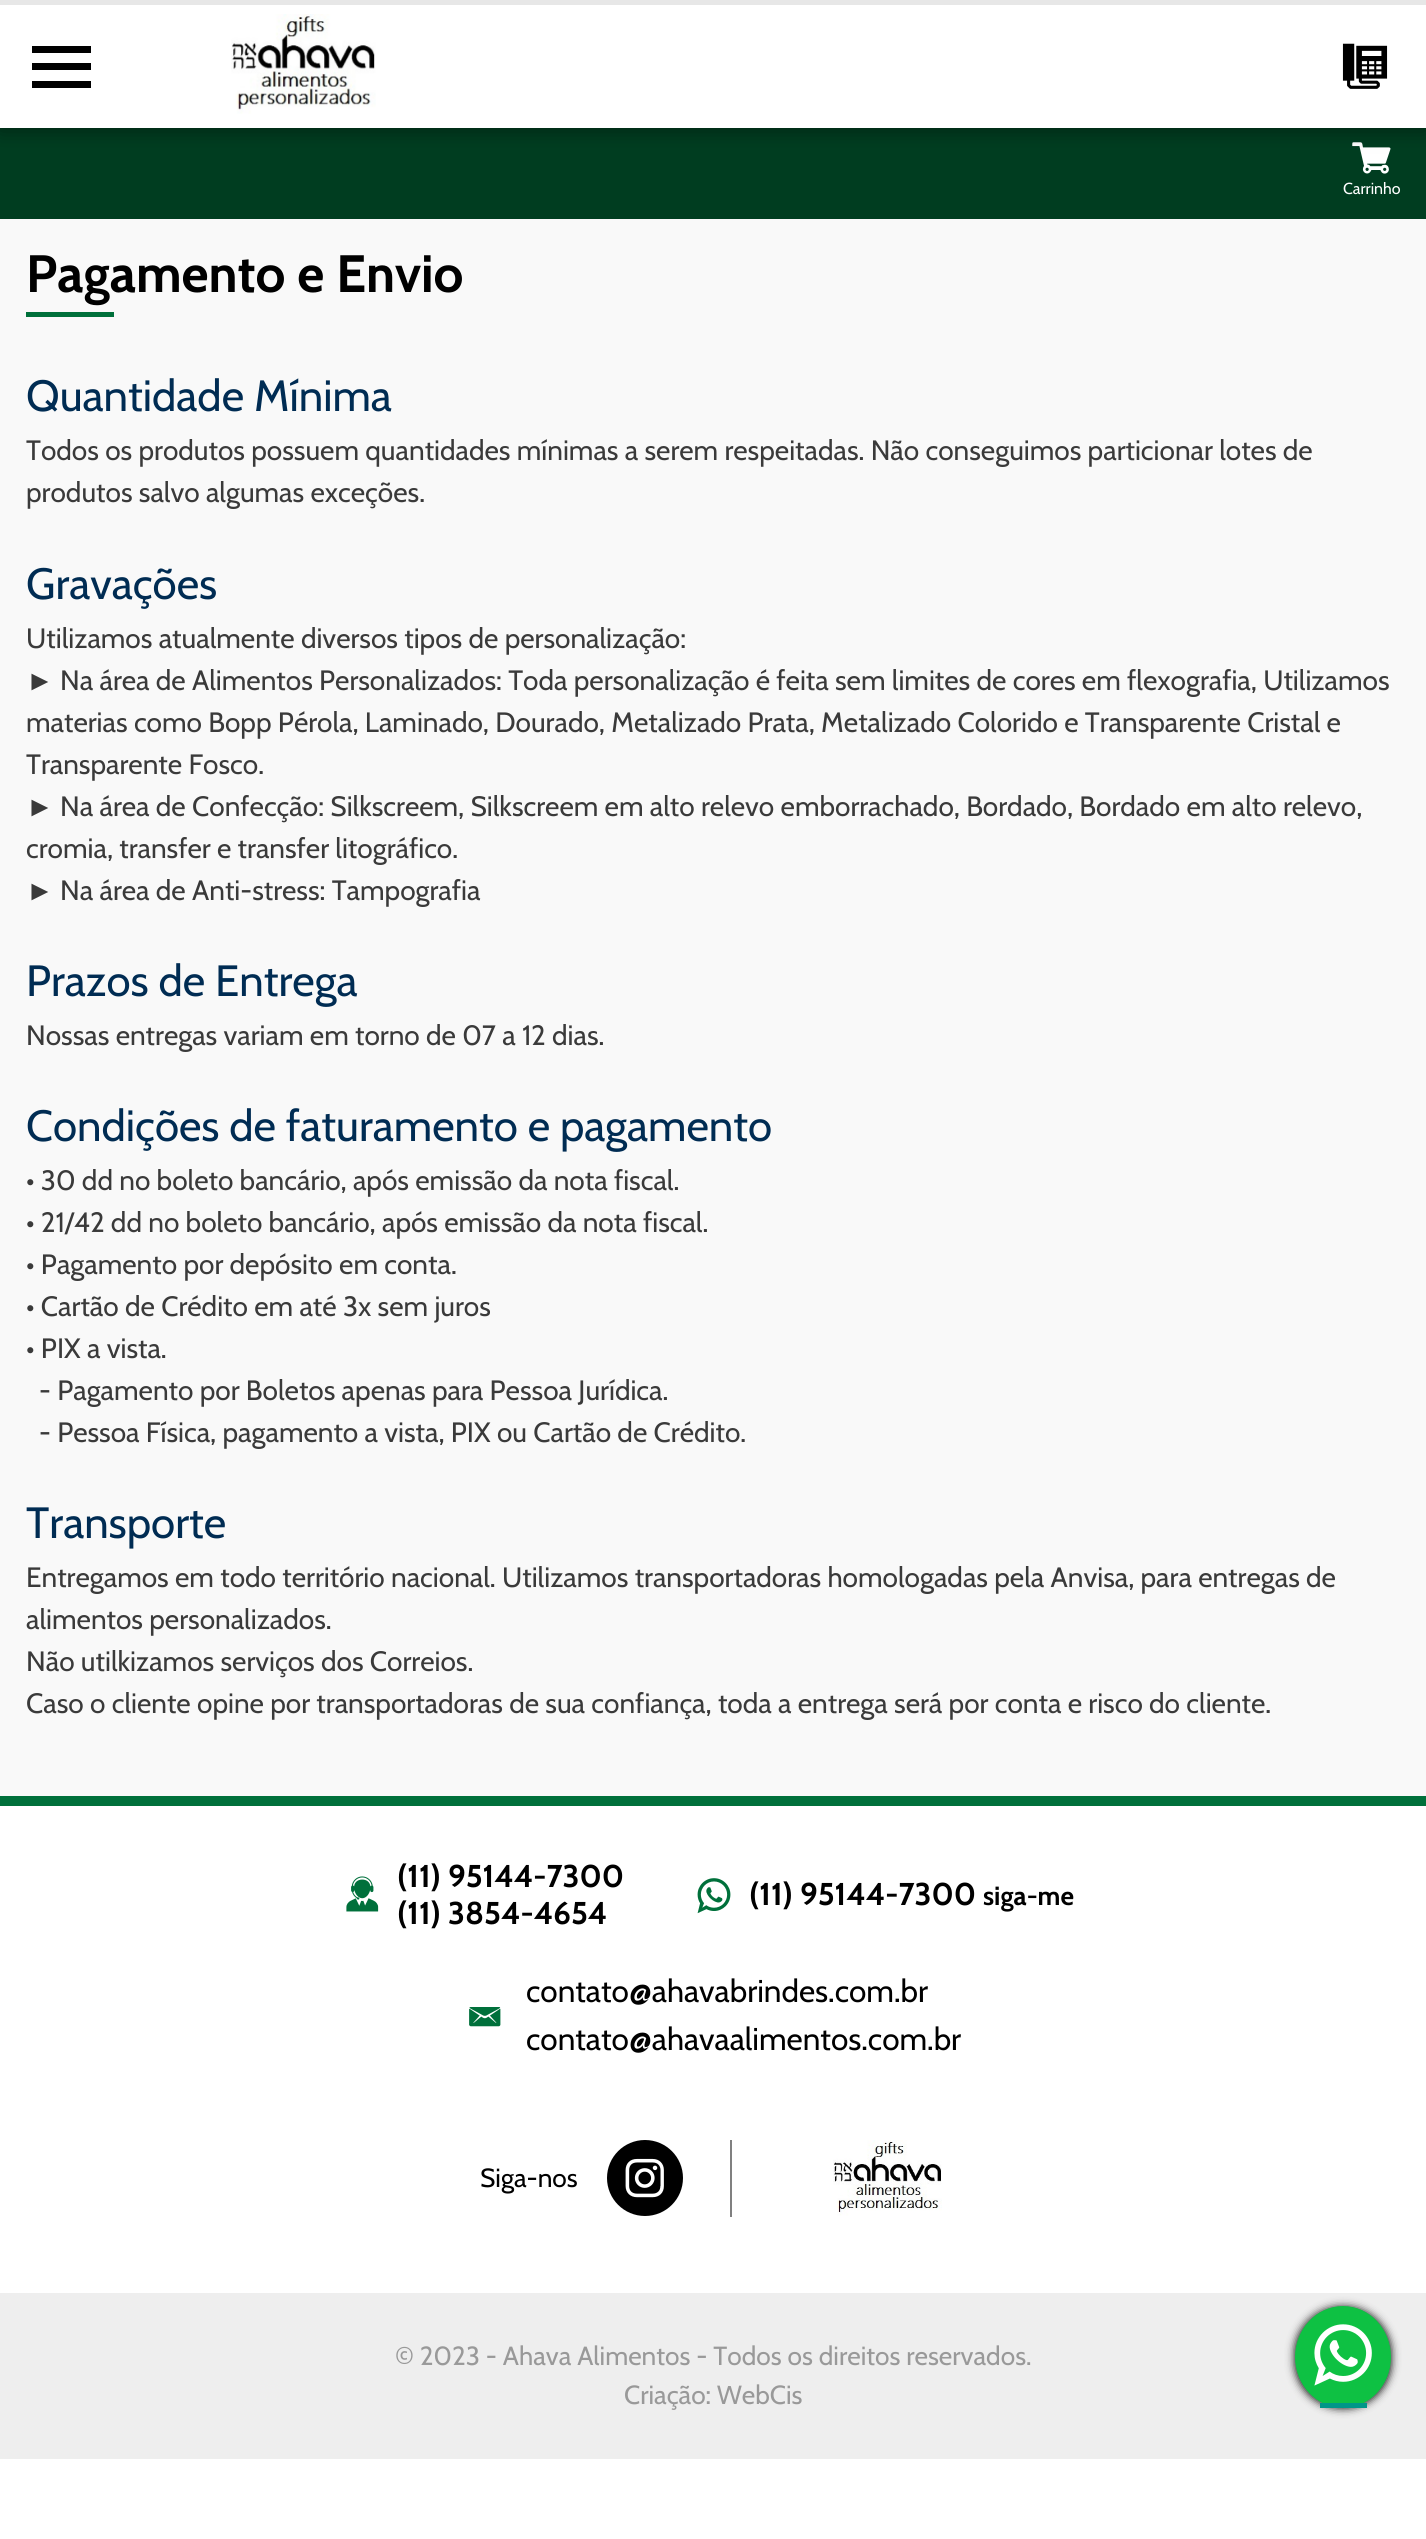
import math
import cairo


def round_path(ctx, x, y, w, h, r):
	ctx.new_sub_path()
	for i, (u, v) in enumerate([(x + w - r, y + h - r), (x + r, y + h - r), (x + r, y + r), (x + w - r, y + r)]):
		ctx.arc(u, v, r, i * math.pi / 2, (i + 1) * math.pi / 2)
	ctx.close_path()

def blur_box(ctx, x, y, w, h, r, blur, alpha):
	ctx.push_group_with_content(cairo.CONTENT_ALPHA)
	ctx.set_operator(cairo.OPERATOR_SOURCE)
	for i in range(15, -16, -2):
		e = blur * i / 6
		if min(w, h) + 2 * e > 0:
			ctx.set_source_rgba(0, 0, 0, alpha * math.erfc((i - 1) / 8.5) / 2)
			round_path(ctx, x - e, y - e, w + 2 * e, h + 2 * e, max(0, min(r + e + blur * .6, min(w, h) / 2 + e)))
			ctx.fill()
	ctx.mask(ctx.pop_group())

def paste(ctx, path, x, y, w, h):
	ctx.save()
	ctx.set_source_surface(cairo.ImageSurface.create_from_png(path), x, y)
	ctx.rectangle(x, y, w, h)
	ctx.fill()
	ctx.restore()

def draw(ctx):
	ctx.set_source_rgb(1, 1, 1)
	ctx.paint()
	ctx.set_source_rgb(0, 0.239, 0.125)
	ctx.rectangle(0, 128, 1426, 91)
	ctx.fill()
	paste(ctx, 'media/3.png', 1352, 142, 39, 32)
	ctx.set_source_rgb(0, 0, 0)
	blur_box(ctx, 0, 0, 1426, 128, 0, 10.5, 0.5)
	ctx.set_source_rgb(1, 1, 1)
	ctx.rectangle(0, 5, 1426, 123)
	ctx.fill()
	ctx.set_source_rgb(0.906, 0.906, 0.906)
	ctx.rectangle(0, 0, 1426, 5)
	ctx.fill()
	ctx.set_source_rgb(0, 0, 0)
	ctx.rectangle(32, 63, 59, 7)
	ctx.rectangle(32, 46, 59, 7)
	ctx.rectangle(32, 81, 59, 7)
	ctx.fill()
	paste(ctx, 'media/1.png', 231, 14, 145, 100)
	paste(ctx, 'media/2.png', 1342, 43, 46, 46)
	ctx.set_source_rgb(0.976, 0.976, 0.976)
	ctx.rectangle(0, 219, 1426, 1577)
	ctx.fill()
	ctx.select_font_face('Cabin')
	ctx.set_font_size(16)
	ctx.set_source_rgb(1, 1, 1)
	ctx.move_to(1343, 194)
	ctx.show_text('Carrinho')
	ctx.select_font_face('Cabin', cairo.FONT_SLANT_NORMAL, cairo.FONT_WEIGHT_BOLD)
	ctx.set_font_size(52.5)
	ctx.set_source_rgb(0, 0, 0)
	ctx.move_to(26, 292)
	ctx.show_text('Pagamento e Envio')
	ctx.set_source_rgb(0, 0.439, 0.231)
	ctx.rectangle(26, 312, 88, 5)
	ctx.fill()
	ctx.select_font_face('Cabin')
	ctx.set_font_size(43.75)
	ctx.set_source_rgb(0, 0.173, 0.325)
	ctx.move_to(26, 411)
	ctx.show_text('Quantidade Mínima')
	ctx.set_font_size(28)
	ctx.set_source_rgb(0.227, 0.227, 0.227)
	ctx.move_to(26, 460)
	ctx.show_text('Todos os produtos possuem quantidades mínimas a serem respeitadas. Não conseguimos particionar lotes de')
	ctx.move_to(26, 502)
	ctx.show_text('produtos salvo algumas exceções.')
	ctx.set_font_size(43.75)
	ctx.set_source_rgb(0, 0.173, 0.325)
	ctx.move_to(26, 599)
	ctx.show_text('Gravações')
	ctx.set_font_size(28)
	ctx.set_source_rgb(0.227, 0.227, 0.227)
	ctx.move_to(26, 648)
	ctx.show_text('Utilizamos atualmente diversos tipos de personalização:')
	ctx.select_font_face('Liberation Sans')
	ctx.move_to(26, 690)
	ctx.show_text('►')
	ctx.select_font_face('Cabin')
	for x, y, s in [
		(60, 690, 'Na área de Alimentos Personalizados: Toda personalização é feita sem limites de cores em flexografia, Utilizamos'),
		(26, 732, 'materias como Bopp Pérola, Laminado, Dourado, Metalizado Prata, Metalizado Colorido e Transparente Cristal e'),
		(26, 774, 'Transparente Fosco.'),
	]:
		ctx.move_to(x, y)
		ctx.show_text(s)
	ctx.select_font_face('Liberation Sans')
	ctx.move_to(26, 816)
	ctx.show_text('►')
	ctx.select_font_face('Cabin')
	ctx.move_to(60, 816)
	ctx.show_text('Na área de Confecção: Silkscreem, Silkscreem em alto relevo emborrachado, Bordado, Bordado em alto relevo,')
	ctx.move_to(26, 858)
	ctx.show_text('cromia, transfer e transfer litográfico.')
	ctx.select_font_face('Liberation Sans')
	ctx.move_to(26, 900)
	ctx.show_text('►')
	ctx.select_font_face('Cabin')
	ctx.move_to(60, 900)
	ctx.show_text('Na área de Anti-stress: Tampografia')
	ctx.set_font_size(43.75)
	ctx.set_source_rgb(0, 0.173, 0.325)
	ctx.move_to(26, 996)
	ctx.show_text('Prazos de Entrega')
	ctx.set_font_size(28)
	ctx.set_source_rgb(0.227, 0.227, 0.227)
	ctx.move_to(26, 1045)
	ctx.show_text('Nossas entregas variam em torno de 07 a 12 dias.')
	ctx.set_font_size(43.75)
	ctx.set_source_rgb(0, 0.173, 0.325)
	ctx.move_to(26, 1141)
	ctx.show_text('Condições de faturamento e pagamento')
	ctx.set_font_size(28)
	ctx.set_source_rgb(0.227, 0.227, 0.227)
	for x, y, s in [
		(26, 1190, '• 30 dd no boleto bancário, após emissão da nota fiscal.'),
		(26, 1232, '• 21/42 dd no boleto bancário, após emissão da nota fiscal.'),
		(26, 1274, '• Pagamento por depósito em conta.'),
		(26, 1316, '• Cartão de Crédito em até 3x sem juros'),
		(26, 1358, '• PIX a vista.'),
		(39, 1400, '- Pagamento por Boletos apenas para Pessoa Jurídica.'),
		(39, 1442, '- Pessoa Física, pagamento a vista, PIX ou Cartão de Crédito.'),
	]:
		ctx.move_to(x, y)
		ctx.show_text(s)
	ctx.set_font_size(43.75)
	ctx.set_source_rgb(0, 0.173, 0.325)
	ctx.move_to(26, 1538)
	ctx.show_text('Transporte')
	ctx.set_font_size(28)
	ctx.set_source_rgb(0.227, 0.227, 0.227)
	for x, y, s in [
		(26, 1587, 'Entregamos em todo território nacional. Utilizamos transportadoras homologadas pela Anvisa, para entregas de'),
		(26, 1629, 'alimentos personalizados.'),
		(26, 1671, 'Não utilkizamos serviços dos Correios.'),
		(26, 1713, 'Caso o cliente opine por transportadoras de sua confiança, toda a entrega será por conta e risco do cliente.'),
	]:
		ctx.move_to(x, y)
		ctx.show_text(s)
	ctx.set_source_rgb(0, 0.439, 0.231)
	ctx.rectangle(0, 1796, 1426, 10)
	ctx.fill()
	paste(ctx, 'media/4.png', 346, 1876, 33, 36)
	ctx.select_font_face('Cabin', cairo.FONT_SLANT_NORMAL, cairo.FONT_WEIGHT_BOLD)
	ctx.set_font_size(31.5)
	ctx.set_source_rgb(0, 0, 0)
	ctx.move_to(397, 1887)
	ctx.show_text('(11) 95144-7300')
	ctx.move_to(397, 1924)
	ctx.show_text('(11) 3854-4654')
	paste(ctx, 'media/5.png', 697, 1878, 34, 36)
	ctx.move_to(749, 1905)
	ctx.show_text('(11) 95144-7300')
	ctx.set_font_size(26.25)
	ctx.move_to(983, 1905)
	ctx.show_text('siga-me')
	ctx.select_font_face('Cabin')
	ctx.set_font_size(31.5)
	ctx.move_to(526, 2002)
	ctx.show_text('contato@ahavabrindes.com.br')
	paste(ctx, 'media/6.png', 469, 2007, 32, 20)
	ctx.move_to(526, 2050)
	ctx.show_text('contato@ahavaalimentos.com.br')
	ctx.set_source_rgb(0.502, 0.502, 0.502)
	ctx.rectangle(730, 2140, 2, 77)
	ctx.fill()
	ctx.set_font_size(26.25)
	ctx.set_source_rgb(0, 0, 0)
	ctx.move_to(480, 2187)
	ctx.show_text('Siga-nos')
	ctx.new_path()
	ctx.arc(645, 2178, 38, 0, 2 * math.pi)
	ctx.fill()
	paste(ctx, 'media/7.png', 625, 2158, 39, 40)
	paste(ctx, 'media/8.png', 833, 2140, 109, 76)
	ctx.set_source_rgb(0.933, 0.933, 0.933)
	ctx.rectangle(0, 2293, 1426, 166)
	ctx.fill()
	ctx.set_source_rgb(0.6, 0.6, 0.6)
	ctx.move_to(395, 2365)
	ctx.show_text('© 2023 - Ahava Alimentos - Todos os direitos reservados.')
	ctx.move_to(624, 2404)
	ctx.show_text('Criação: WebCis')
	ctx.set_source_rgb(0, 0, 0)
	blur_box(ctx, 1295, 2307, 96, 101, 48, 4.5, 1)
	ctx.set_source_rgb(0.055, 0.757, 0.263)
	ctx.new_path()
	ctx.move_to(1343, 2306)
	ctx.curve_to(1369.5, 2306, 1391, 2329, 1391, 2357)
	ctx.curve_to(1391, 2385, 1369.5, 2408, 1343, 2408)
	ctx.curve_to(1316.5, 2408, 1295, 2385, 1295, 2357)
	ctx.curve_to(1295, 2329, 1316.5, 2306, 1343, 2306)
	ctx.close_path()
	ctx.fill()
	ctx.set_source_rgb(0, 0.588, 0.533)
	ctx.rectangle(1320, 2403, 47, 5)
	ctx.fill()
	paste(ctx, 'media/9.png', 1314, 2324, 58, 62)


surface = cairo.ImageSurface(cairo.FORMAT_RGB24, 1426, 2539)
ctx = cairo.Context(surface)
options = cairo.FontOptions()
options.set_hint_metrics(cairo.HINT_METRICS_OFF)
options.set_hint_style(cairo.HINT_STYLE_NONE)
ctx.set_font_options(options)
ctx.set_miter_limit(4)
draw(ctx)
surface.write_to_png('image.png')
